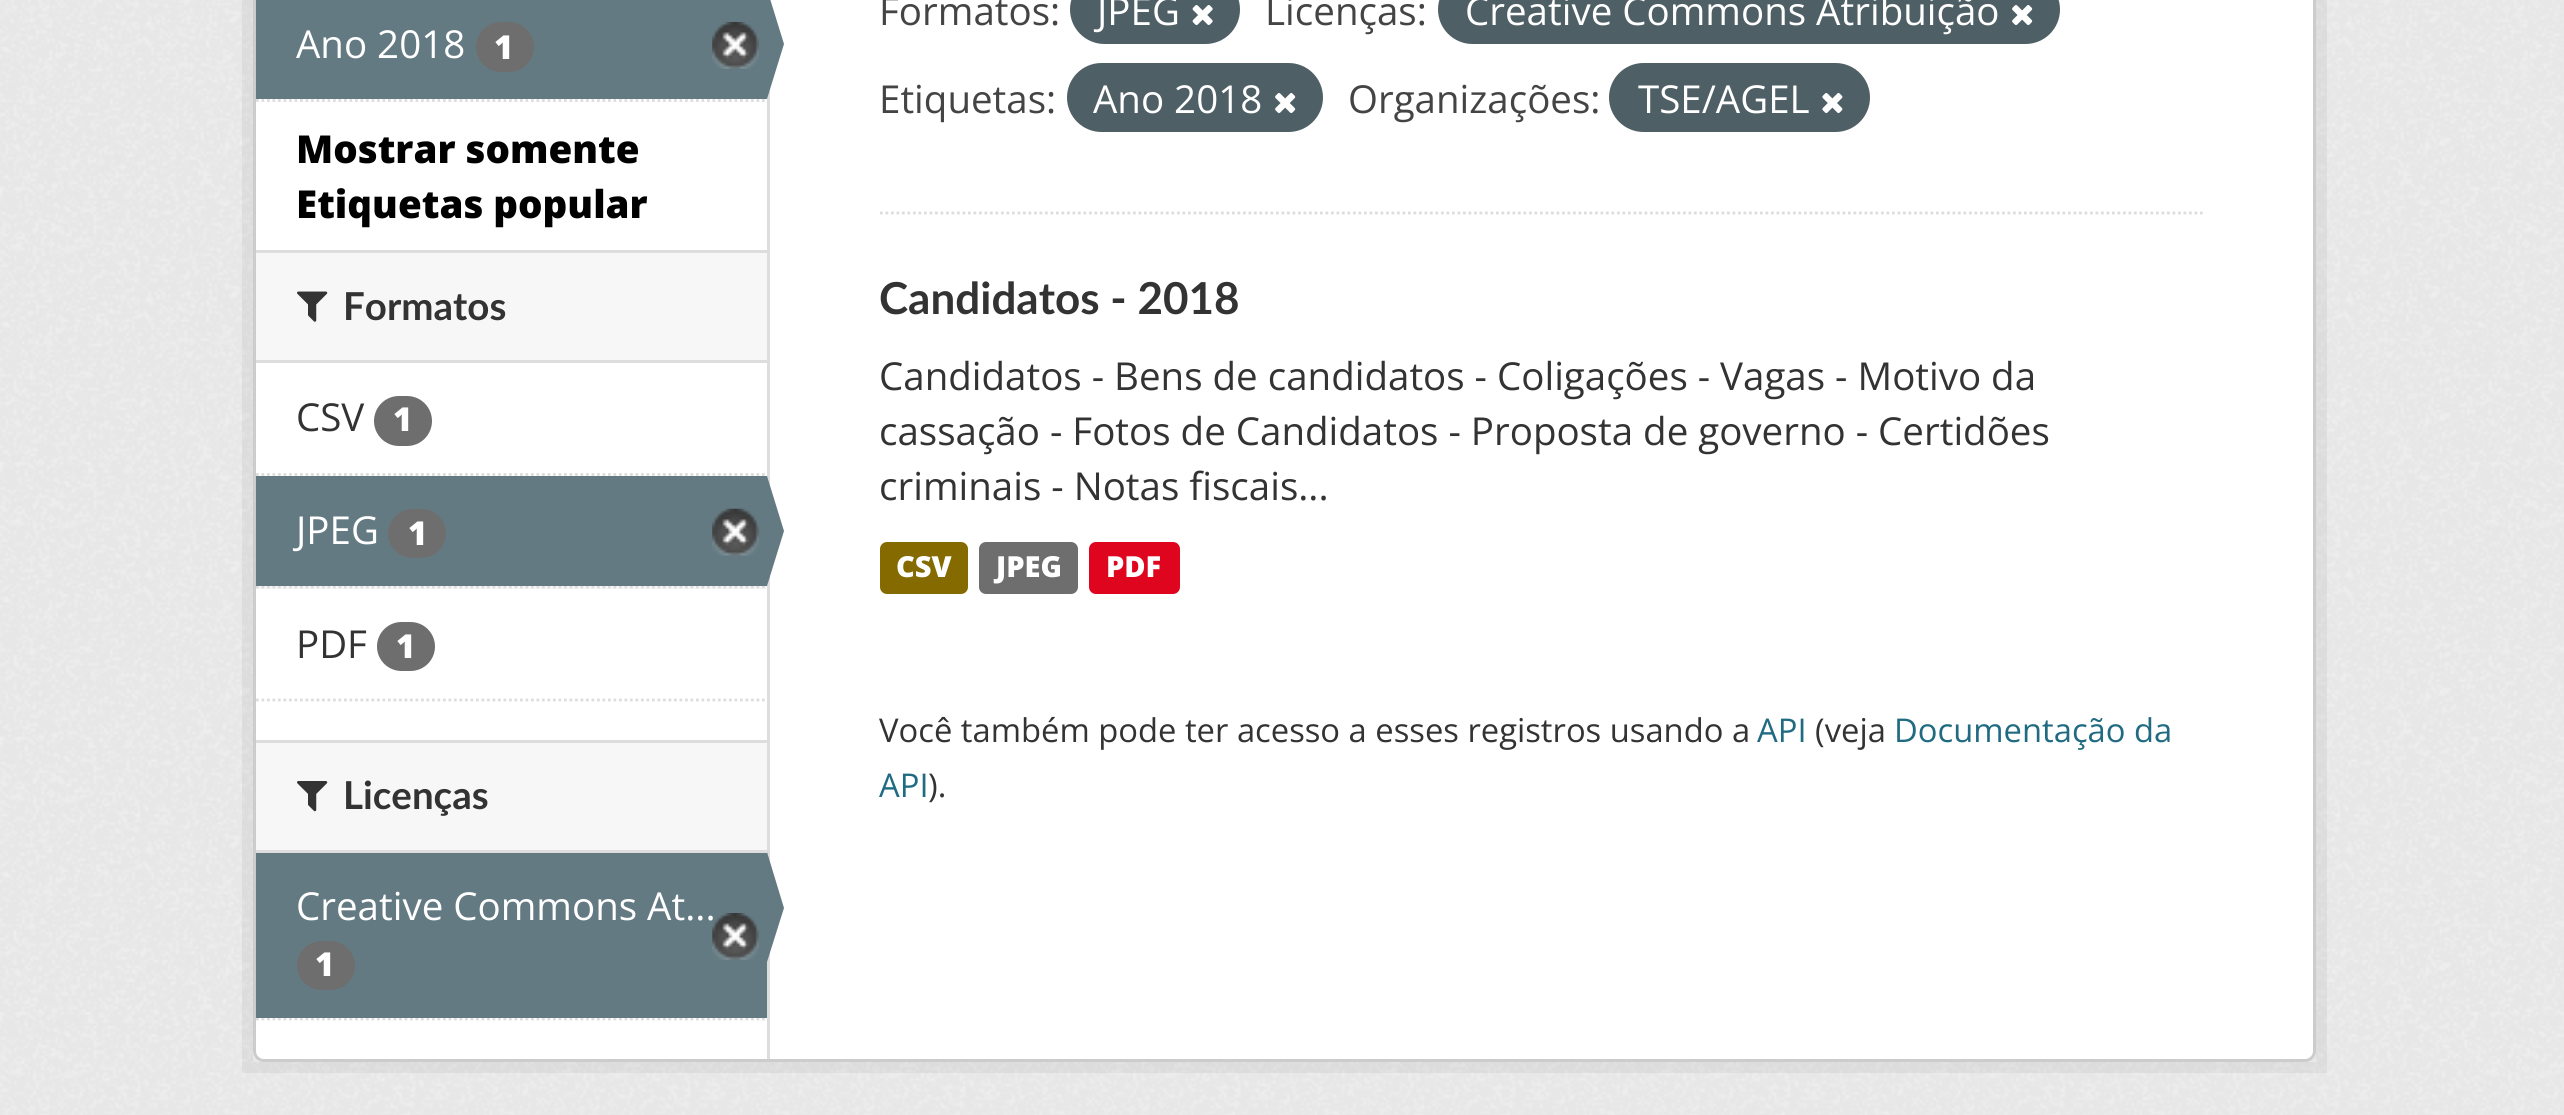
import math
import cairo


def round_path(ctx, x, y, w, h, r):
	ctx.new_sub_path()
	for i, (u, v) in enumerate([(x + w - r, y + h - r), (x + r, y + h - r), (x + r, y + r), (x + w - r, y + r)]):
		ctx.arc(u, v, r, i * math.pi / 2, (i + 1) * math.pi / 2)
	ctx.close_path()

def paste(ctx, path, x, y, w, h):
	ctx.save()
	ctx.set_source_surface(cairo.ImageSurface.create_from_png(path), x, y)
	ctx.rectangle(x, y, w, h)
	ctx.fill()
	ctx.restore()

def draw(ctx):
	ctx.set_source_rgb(0.933, 0.933, 0.933)
	ctx.paint()
	paste(ctx, 'media/1.png', 0, 0, 2564, 1115)
	ctx.rectangle(247.5, -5.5, 2074, 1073)
	ctx.set_source_rgba(0, 0, 0, 0.05)
	ctx.set_line_width(11)
	ctx.stroke()
	ctx.set_source_rgb(1, 1, 1)
	round_path(ctx, 254.5, -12.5, 2060, 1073, 9.5)
	ctx.fill_preserve()
	ctx.set_source_rgb(0.8, 0.8, 0.8)
	ctx.set_line_width(3)
	ctx.stroke()
	ctx.set_source_rgb(0.392, 0.478, 0.51)
	ctx.rectangle(256, 0, 511, 99)
	ctx.fill()
	ctx.select_font_face('Open Sans')
	ctx.set_font_size(38.5)
	ctx.set_source_rgb(1, 1, 1)
	ctx.move_to(296, 58)
	ctx.show_text('Ano 2018')
	ctx.set_source_rgb(0.431, 0.431, 0.431)
	round_path(ctx, 476, 22, 58, 50, 25)
	ctx.fill()
	ctx.select_font_face('Open Sans ExtraBold')
	ctx.set_font_size(33)
	ctx.set_source_rgb(1, 1, 1)
	ctx.move_to(494, 59)
	ctx.show_text('1')
	paste(ctx, 'media/2.png', 712, 22, 47, 47)
	ctx.set_source_rgb(0.867, 0.867, 0.867)
	ctx.rectangle(767, 89, 3, 970)
	ctx.fill()
	ctx.set_source_rgb(0.392, 0.478, 0.51)
	ctx.new_path()
	ctx.move_to(767, 99)
	ctx.line_to(767, -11)
	ctx.line_to(784, 44)
	ctx.close_path()
	ctx.fill()
	ctx.new_path()
	ctx.move_to(256, 100.5)
	ctx.line_to(767, 100.5)
	ctx.set_source_rgb(0.867, 0.867, 0.867)
	ctx.set_line_width(2.8)
	ctx.set_dash([2.75, 2.75])
	ctx.stroke()
	ctx.set_font_size(38.5)
	ctx.set_source_rgb(0, 0, 0)
	ctx.move_to(296, 163)
	ctx.show_text('Mostrar somente')
	ctx.move_to(296, 218)
	ctx.show_text('Etiquetas popular')
	ctx.set_source_rgb(0.965, 0.965, 0.965)
	ctx.rectangle(256, 253, 511, 107)
	ctx.fill()
	ctx.set_source_rgb(0.867, 0.867, 0.867)
	ctx.rectangle(256, 250, 511, 3)
	ctx.rectangle(256, 360, 511, 3)
	ctx.fill()
	paste(ctx, 'media/3.png', 297, 291, 31, 31)
	ctx.select_font_face('Lato', cairo.FONT_SLANT_NORMAL, cairo.FONT_WEIGHT_BOLD)
	ctx.set_source_rgb(0.2, 0.2, 0.2)
	ctx.move_to(343, 320)
	ctx.show_text('Formatos')
	ctx.new_path()
	ctx.move_to(256, 474.5)
	ctx.line_to(767, 474.5)
	ctx.set_source_rgb(0.867, 0.867, 0.867)
	ctx.stroke()
	ctx.select_font_face('Open Sans')
	ctx.set_source_rgb(0.2, 0.2, 0.2)
	ctx.move_to(296, 431)
	ctx.show_text('CSV')
	ctx.set_source_rgb(0.431, 0.431, 0.431)
	round_path(ctx, 374, 396, 58, 50, 25)
	ctx.fill()
	ctx.select_font_face('Open Sans ExtraBold')
	ctx.set_font_size(33)
	ctx.set_source_rgb(1, 1, 1)
	ctx.move_to(393, 431)
	ctx.show_text('1')
	ctx.set_source_rgb(0.965, 0.965, 0.965)
	ctx.rectangle(256, 586, 511, 3)
	ctx.fill()
	ctx.new_path()
	ctx.move_to(256, 587)
	ctx.line_to(767, 587)
	ctx.set_source_rgb(0.867, 0.867, 0.867)
	ctx.stroke()
	ctx.set_source_rgb(0.392, 0.478, 0.51)
	ctx.rectangle(256, 476, 511, 110)
	ctx.fill()
	ctx.select_font_face('Open Sans')
	ctx.set_font_size(38.5)
	ctx.set_source_rgb(1, 1, 1)
	ctx.move_to(296, 544)
	ctx.show_text('JPEG')
	ctx.set_source_rgb(0.431, 0.431, 0.431)
	round_path(ctx, 388, 509, 58, 49, 24.5)
	ctx.fill()
	ctx.select_font_face('Open Sans ExtraBold')
	ctx.set_font_size(33)
	ctx.set_source_rgb(1, 1, 1)
	ctx.move_to(408, 545)
	ctx.show_text('1')
	paste(ctx, 'media/4.png', 712, 508, 47, 48)
	ctx.set_source_rgb(0.392, 0.478, 0.51)
	ctx.new_path()
	ctx.move_to(767, 586)
	ctx.line_to(767, 476)
	ctx.line_to(784, 531)
	ctx.close_path()
	ctx.fill()
	ctx.select_font_face('Open Sans')
	ctx.set_font_size(38.5)
	ctx.set_source_rgb(0.2, 0.2, 0.2)
	ctx.move_to(296, 658)
	ctx.show_text('PDF')
	ctx.set_source_rgb(0.431, 0.431, 0.431)
	round_path(ctx, 377, 622, 58, 49, 24.5)
	ctx.fill()
	ctx.select_font_face('Open Sans ExtraBold')
	ctx.set_font_size(33)
	ctx.set_source_rgb(1, 1, 1)
	ctx.move_to(396, 658)
	ctx.show_text('1')
	ctx.new_path()
	ctx.move_to(256, 700)
	ctx.line_to(767, 700)
	ctx.set_source_rgb(0.867, 0.867, 0.867)
	ctx.stroke()
	ctx.set_source_rgb(0.965, 0.965, 0.965)
	ctx.rectangle(256, 743, 511, 107)
	ctx.fill()
	ctx.set_source_rgb(0.867, 0.867, 0.867)
	ctx.rectangle(256, 740, 511, 3)
	ctx.rectangle(256, 850, 511, 3)
	ctx.fill()
	paste(ctx, 'media/5.png', 297, 781, 31, 31)
	ctx.select_font_face('Lato', cairo.FONT_SLANT_NORMAL, cairo.FONT_WEIGHT_BOLD)
	ctx.set_font_size(38.5)
	ctx.set_source_rgb(0.2, 0.2, 0.2)
	ctx.move_to(343, 809)
	ctx.show_text('Licenças')
	ctx.new_path()
	ctx.move_to(256, 1019)
	ctx.line_to(767, 1019)
	ctx.set_source_rgb(0.867, 0.867, 0.867)
	ctx.stroke()
	ctx.set_source_rgb(0.392, 0.478, 0.51)
	ctx.rectangle(256, 853, 511, 165)
	ctx.fill()
	ctx.select_font_face('Open Sans')
	ctx.set_source_rgb(1, 1, 1)
	ctx.move_to(296, 920)
	ctx.show_text('Creative Commons At...')
	ctx.set_source_rgb(0.392, 0.478, 0.51)
	ctx.new_path()
	ctx.move_to(767, 962)
	ctx.line_to(767, 852)
	ctx.line_to(784, 908)
	ctx.close_path()
	ctx.fill()
	paste(ctx, 'media/6.png', 712, 913, 47, 47)
	ctx.set_source_rgb(0.431, 0.431, 0.431)
	round_path(ctx, 297, 941, 58, 49, 24.5)
	ctx.fill()
	ctx.select_font_face('Open Sans ExtraBold')
	ctx.set_font_size(33)
	ctx.set_source_rgb(1, 1, 1)
	ctx.move_to(315, 976)
	ctx.show_text('1')
	ctx.new_path()
	ctx.move_to(880, 213)
	ctx.line_to(2203, 213)
	ctx.set_source_rgb(0.867, 0.867, 0.867)
	ctx.stroke()
	ctx.select_font_face('Open Sans')
	ctx.set_font_size(38.5)
	ctx.set_source_rgb(0.267, 0.267, 0.267)
	ctx.move_to(879, 25)
	ctx.show_text('Formatos:')
	ctx.set_source_rgb(0.306, 0.373, 0.396)
	round_path(ctx, 1070, -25, 170, 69, 34.5)
	ctx.fill()
	ctx.set_source_rgb(1, 1, 1)
	ctx.move_to(1097, 25)
	ctx.show_text('JPEG')
	paste(ctx, 'media/7.png', 1192, 5, 21, 20)
	ctx.set_source_rgb(0.267, 0.267, 0.267)
	ctx.move_to(1265, 25)
	ctx.show_text('Licenças:')
	ctx.set_source_rgb(0.306, 0.373, 0.396)
	round_path(ctx, 1438, -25, 622, 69, 34.5)
	ctx.fill()
	ctx.set_source_rgb(1, 1, 1)
	ctx.move_to(1465, 25)
	ctx.show_text('Creative Commons Atribuição')
	paste(ctx, 'media/8.png', 2012, 5, 21, 20)
	ctx.set_source_rgb(0.267, 0.267, 0.267)
	ctx.move_to(879, 113)
	ctx.show_text('Etiquetas:')
	ctx.set_source_rgb(0.306, 0.373, 0.396)
	round_path(ctx, 1067, 63, 256, 69, 34.5)
	ctx.fill()
	ctx.set_source_rgb(1, 1, 1)
	ctx.move_to(1093, 113)
	ctx.show_text('Ano 2018')
	paste(ctx, 'media/8.png', 1275, 93, 21, 20)
	ctx.set_source_rgb(0.267, 0.267, 0.267)
	ctx.move_to(1348, 113)
	ctx.show_text('Organizações:')
	ctx.set_source_rgb(0.306, 0.373, 0.396)
	round_path(ctx, 1609, 63, 261, 69, 34.5)
	ctx.fill()
	ctx.set_source_rgb(1, 1, 1)
	ctx.move_to(1638, 113)
	ctx.show_text('TSE/AGEL')
	paste(ctx, 'media/9.png', 1822, 93, 21, 20)
	ctx.select_font_face('Lato', cairo.FONT_SLANT_NORMAL, cairo.FONT_WEIGHT_BOLD)
	ctx.set_font_size(44)
	ctx.set_source_rgb(0.2, 0.2, 0.2)
	ctx.move_to(879, 314)
	ctx.show_text('Candidatos - 2018')
	ctx.select_font_face('Open Sans')
	ctx.set_font_size(38.5)
	for x, y, s in [
		(879, 390, 'Candidatos - Bens de candidatos - Coligações - Vagas - Motivo da'),
		(879, 445, 'cassação - Fotos de Candidatos - Proposta de governo - Certidões'),
		(879, 500, 'criminais - Notas fiscais...'),
	]:
		ctx.move_to(x, y)
		ctx.show_text(s)
	ctx.set_source_rgb(0.522, 0.416, 0)
	round_path(ctx, 880, 542, 88, 52, 7)
	ctx.fill()
	ctx.select_font_face('Open Sans ExtraBold')
	ctx.set_font_size(29)
	ctx.set_source_rgb(1, 1, 1)
	ctx.move_to(896, 577)
	ctx.show_text('CSV')
	ctx.set_source_rgb(0.431, 0.431, 0.431)
	round_path(ctx, 979, 542, 99, 52, 7)
	ctx.fill()
	ctx.set_source_rgb(1, 1, 1)
	ctx.move_to(996, 577)
	ctx.show_text('JPEG')
	ctx.set_source_rgb(0.878, 0.02, 0.118)
	round_path(ctx, 1089, 542, 91, 52, 7)
	ctx.fill()
	ctx.set_source_rgb(1, 1, 1)
	ctx.move_to(1106, 577)
	ctx.show_text('PDF')
	ctx.select_font_face('Open Sans')
	ctx.set_font_size(32.75)
	ctx.set_source_rgb(0.2, 0.2, 0.2)
	ctx.move_to(879, 742)
	ctx.show_text('Você também pode ter acesso a esses registros usando a')
	ctx.set_source_rgb(0.125, 0.42, 0.51)
	ctx.move_to(1757, 742)
	ctx.show_text('API')
	ctx.set_source_rgb(0.2, 0.2, 0.2)
	ctx.move_to(1815, 742)
	ctx.show_text('(veja')
	ctx.set_source_rgb(0.125, 0.42, 0.51)
	ctx.move_to(1894, 742)
	ctx.show_text('Documentação da')
	ctx.move_to(879, 797)
	ctx.show_text('API')
	ctx.set_source_rgb(0.2, 0.2, 0.2)
	ctx.move_to(928, 797)
	ctx.show_text(').')


surface = cairo.ImageSurface(cairo.FORMAT_RGB24, 2564, 1115)
ctx = cairo.Context(surface)
options = cairo.FontOptions()
options.set_hint_metrics(cairo.HINT_METRICS_OFF)
options.set_hint_style(cairo.HINT_STYLE_NONE)
ctx.set_font_options(options)
ctx.set_miter_limit(4)
draw(ctx)
surface.write_to_png('image.png')
